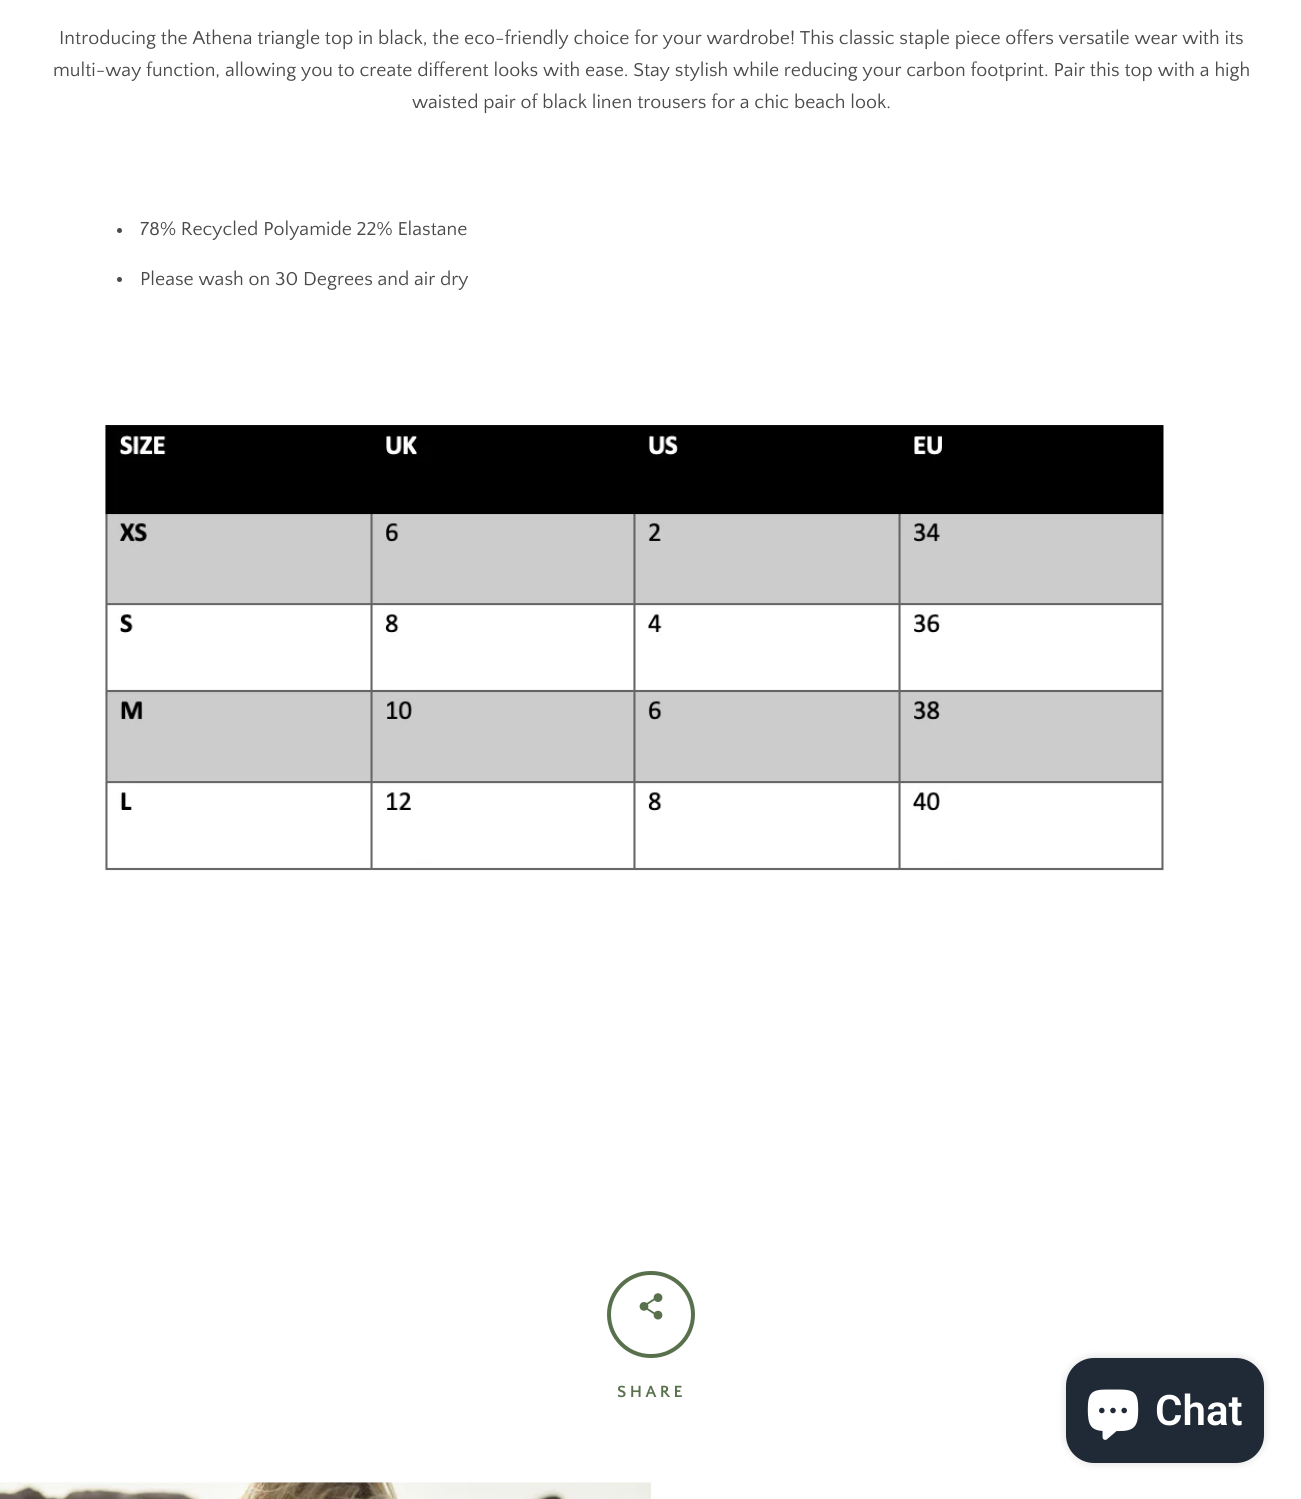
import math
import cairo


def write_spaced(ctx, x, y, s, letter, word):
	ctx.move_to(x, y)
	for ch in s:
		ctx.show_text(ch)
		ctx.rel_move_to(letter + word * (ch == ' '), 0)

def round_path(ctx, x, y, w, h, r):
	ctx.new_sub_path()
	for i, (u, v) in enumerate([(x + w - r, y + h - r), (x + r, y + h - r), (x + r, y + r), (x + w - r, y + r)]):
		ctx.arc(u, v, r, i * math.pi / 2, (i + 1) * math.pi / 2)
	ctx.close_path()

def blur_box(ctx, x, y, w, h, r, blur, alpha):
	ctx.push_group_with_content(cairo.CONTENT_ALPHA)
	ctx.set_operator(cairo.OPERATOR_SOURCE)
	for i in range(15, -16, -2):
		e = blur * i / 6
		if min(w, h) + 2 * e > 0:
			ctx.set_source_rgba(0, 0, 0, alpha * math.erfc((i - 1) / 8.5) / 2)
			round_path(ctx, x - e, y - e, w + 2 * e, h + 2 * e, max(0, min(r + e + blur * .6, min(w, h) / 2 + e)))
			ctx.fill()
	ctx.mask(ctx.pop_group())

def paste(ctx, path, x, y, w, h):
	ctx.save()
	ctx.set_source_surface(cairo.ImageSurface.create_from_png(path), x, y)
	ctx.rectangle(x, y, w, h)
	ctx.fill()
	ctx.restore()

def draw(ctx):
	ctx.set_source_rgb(1, 1, 1)
	ctx.paint()
	ctx.select_font_face('Quattrocento Sans')
	ctx.set_font_size(19.6)
	ctx.set_source_rgb(0.29, 0.29, 0.29)
	for x, y, s in [
		(59, 44, 'Introducing the Athena triangle top in black, the eco-friendly choice for your wardrobe! This classic staple piece offers versatile wear with its'),
		(53, 76, 'multi-way function, allowing you to create different looks with ease. Stay stylish while reducing your carbon footprint. Pair this top with a high'),
		(412, 108, 'waisted pair of black linen trousers for a chic beach look.'),
	]:
		ctx.move_to(x, y)
		ctx.show_text(s)
	ctx.new_path()
	ctx.arc(119.5, 230.5, 2.5, 0, 2 * math.pi)
	ctx.fill()
	ctx.move_to(140, 235)
	ctx.show_text('78% Recycled Polyamide 22% Elastane')
	ctx.new_path()
	ctx.arc(119.5, 279.5, 2.5, 0, 2 * math.pi)
	ctx.fill()
	ctx.move_to(140, 285)
	ctx.show_text('Please wash on 30 Degrees and air dry')
	paste(ctx, 'media/1.png', 105, 425, 1059, 446)
	round_path(ctx, 609, 1273, 84, 83, 41.5)
	ctx.set_source_rgb(0.349, 0.439, 0.298)
	ctx.set_line_width(4)
	ctx.stroke()
	paste(ctx, 'media/2.png', 639, 1293, 24, 27)
	ctx.select_font_face('Quattrocento Sans', cairo.FONT_SLANT_NORMAL, cairo.FONT_WEIGHT_BOLD)
	ctx.set_font_size(17)
	write_spaced(ctx, 617, 1397, 'SHARE', 3.5, 0)
	paste(ctx, 'media/3.png', 0, 1482, 651, 17)
	ctx.set_source_rgb(0, 0, 0)
	blur_box(ctx, 1066, 1358, 198, 105, 28, 4.5, 0.15)
	ctx.set_source_rgb(0.125, 0.165, 0.212)
	round_path(ctx, 1066, 1358, 198, 105, 28)
	ctx.fill()
	paste(ctx, 'media/4.png', 1087, 1389, 52, 51)
	ctx.select_font_face('Roboto SemiBold')
	ctx.set_font_size(42)
	ctx.set_source_rgb(1, 1, 1)
	ctx.move_to(1155, 1425)
	ctx.show_text('Chat')


surface = cairo.ImageSurface(cairo.FORMAT_RGB24, 1301, 1499)
ctx = cairo.Context(surface)
options = cairo.FontOptions()
options.set_hint_metrics(cairo.HINT_METRICS_OFF)
options.set_hint_style(cairo.HINT_STYLE_NONE)
ctx.set_font_options(options)
ctx.set_miter_limit(4)
draw(ctx)
surface.write_to_png('image.png')
